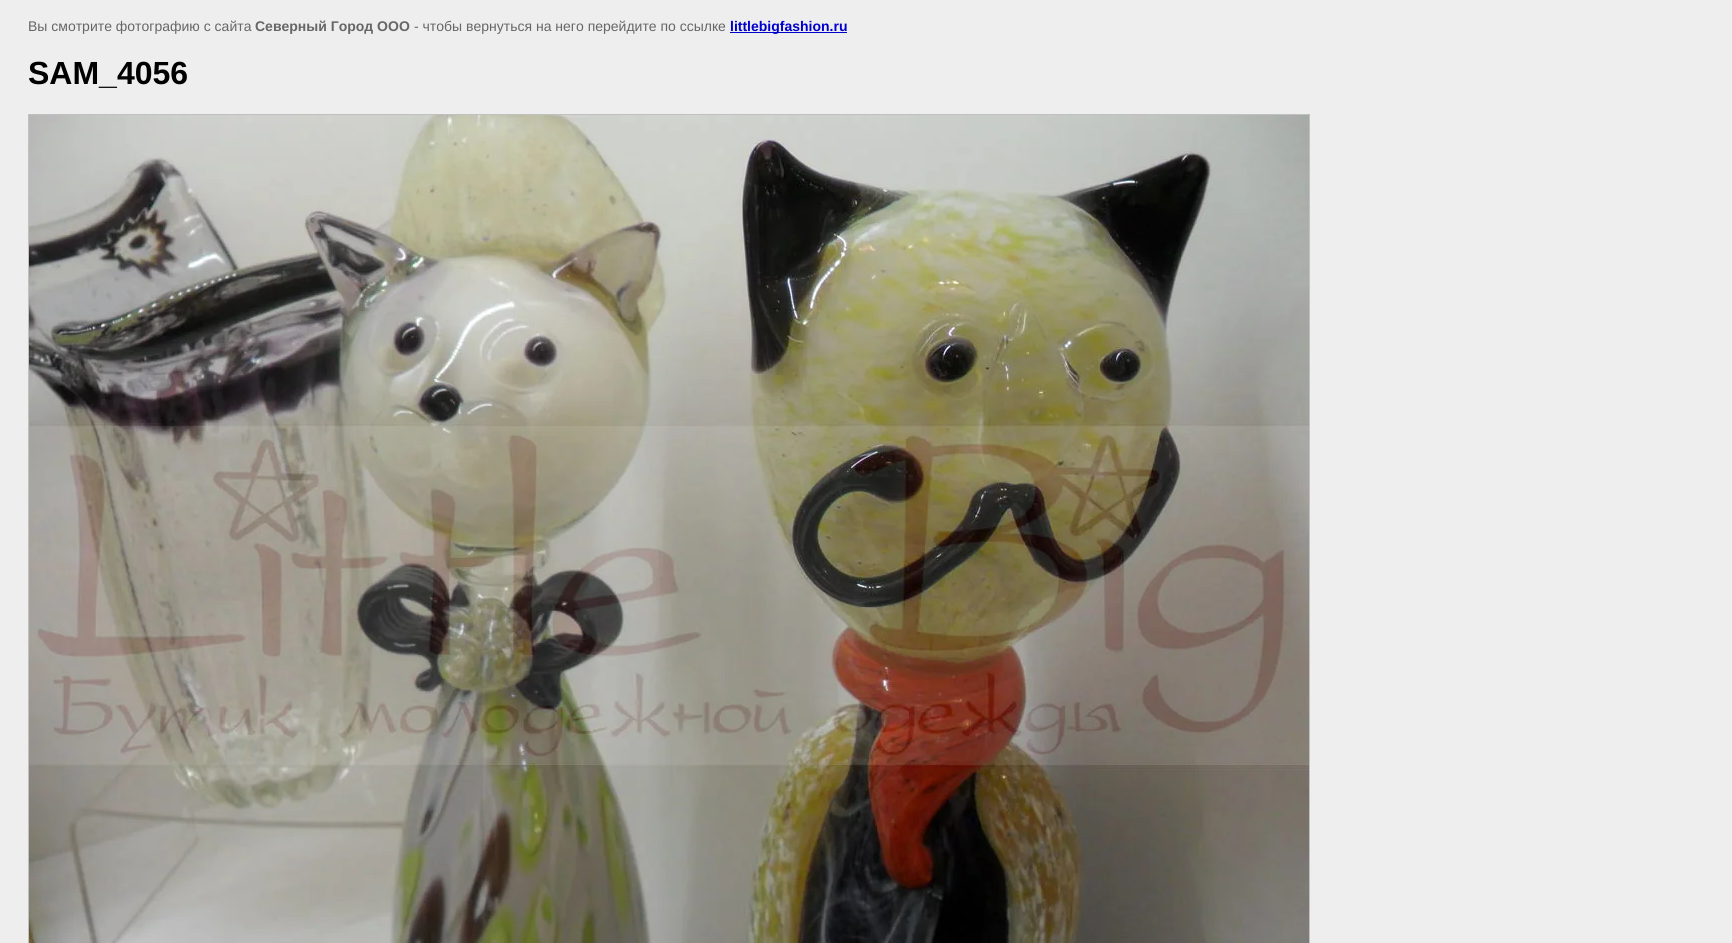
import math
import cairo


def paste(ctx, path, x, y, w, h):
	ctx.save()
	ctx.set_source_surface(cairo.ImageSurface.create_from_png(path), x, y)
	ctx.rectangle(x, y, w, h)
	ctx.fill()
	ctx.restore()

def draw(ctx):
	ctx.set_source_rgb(0.933, 0.933, 0.933)
	ctx.paint()
	ctx.select_font_face('Liberation Sans')
	ctx.set_font_size(14)
	ctx.set_source_rgb(0.4, 0.4, 0.4)
	ctx.move_to(28, 31)
	ctx.show_text('Вы смотрите фотографию с сайта')
	ctx.select_font_face('Liberation Sans', cairo.FONT_SLANT_NORMAL, cairo.FONT_WEIGHT_BOLD)
	ctx.move_to(255, 31)
	ctx.show_text('Северный Город ООО')
	ctx.select_font_face('Liberation Sans')
	ctx.move_to(414, 31)
	ctx.show_text('- чтобы вернуться на него перейдите по ссылке')
	ctx.set_source_rgb(0, 0, 0.8)
	ctx.rectangle(730, 32, 117, 1)
	ctx.fill()
	ctx.select_font_face('Liberation Sans', cairo.FONT_SLANT_NORMAL, cairo.FONT_WEIGHT_BOLD)
	ctx.move_to(730, 31)
	ctx.show_text('littlebigfashion.ru')
	ctx.set_font_size(32)
	ctx.set_source_rgb(0, 0, 0)
	ctx.move_to(28, 84)
	ctx.show_text('SAM_4056')
	ctx.rectangle(28.5, 114.5, 1281, 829)
	ctx.set_source_rgb(0.753, 0.753, 0.753)
	ctx.set_line_width(1)
	ctx.stroke()
	paste(ctx, 'media/1.png', 29, 115, 1280, 828)


surface = cairo.ImageSurface(cairo.FORMAT_RGB24, 1732, 943)
ctx = cairo.Context(surface)
options = cairo.FontOptions()
options.set_hint_metrics(cairo.HINT_METRICS_OFF)
options.set_hint_style(cairo.HINT_STYLE_NONE)
ctx.set_font_options(options)
ctx.set_miter_limit(4)
draw(ctx)
surface.write_to_png('image.png')
